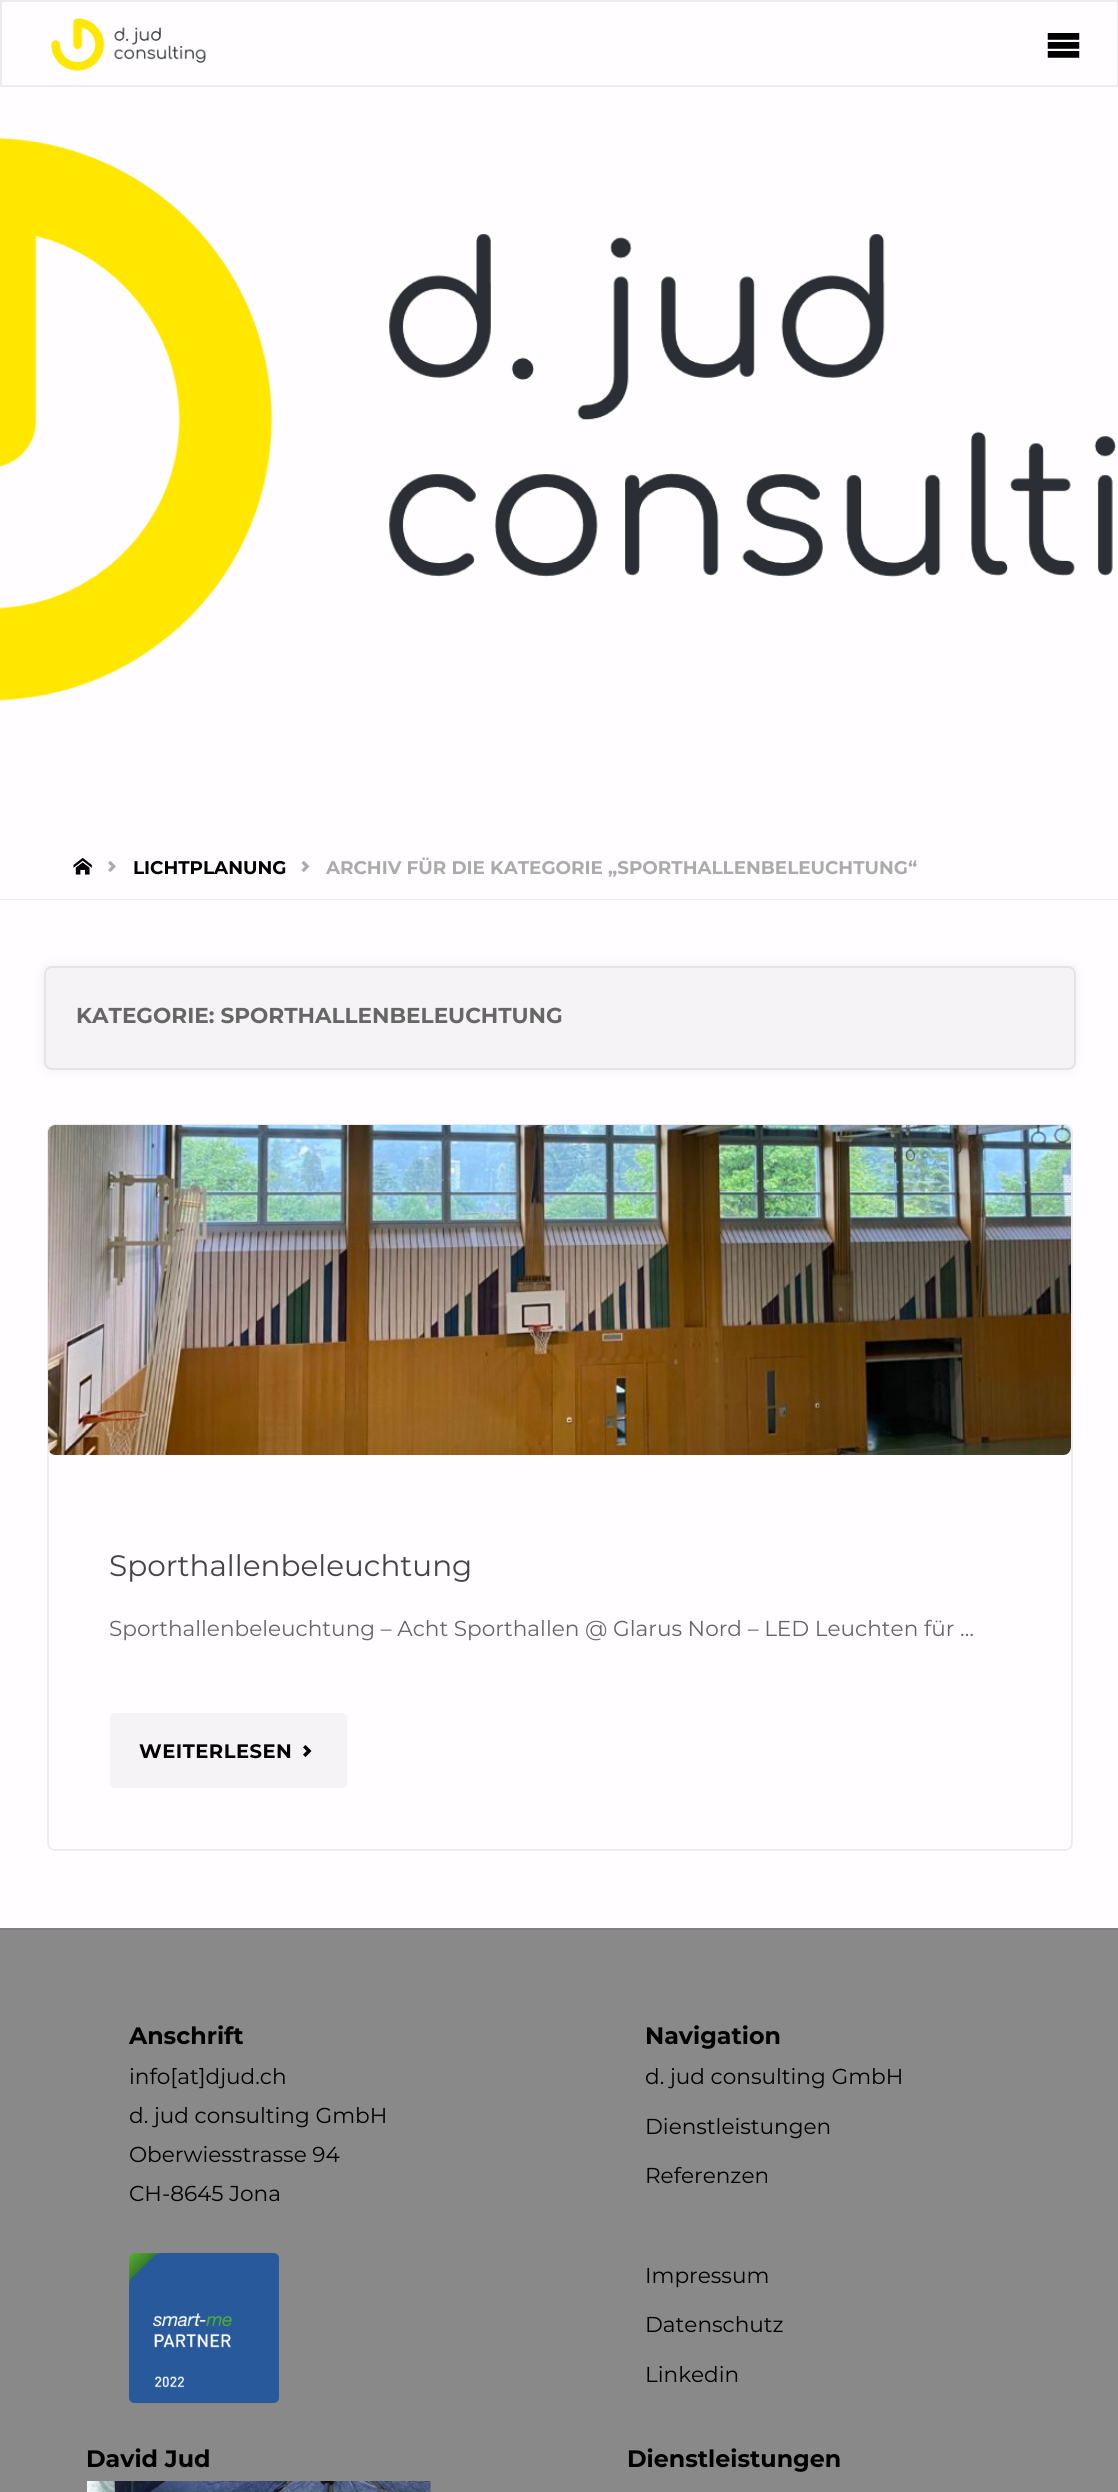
import math
import cairo


def write_spaced(ctx, x, y, s, letter, word):
	ctx.move_to(x, y)
	for ch in s:
		ctx.show_text(ch)
		ctx.rel_move_to(letter + word * (ch == ' '), 0)

def round_path(ctx, x, y, w, h, r):
	ctx.new_sub_path()
	for i, (u, v) in enumerate([(x + w - r, y + h - r), (x + r, y + h - r), (x + r, y + r), (x + w - r, y + r)]):
		ctx.arc(u, v, r, i * math.pi / 2, (i + 1) * math.pi / 2)
	ctx.close_path()

def blur_box(ctx, x, y, w, h, r, blur, alpha):
	ctx.push_group_with_content(cairo.CONTENT_ALPHA)
	ctx.set_operator(cairo.OPERATOR_SOURCE)
	for i in range(15, -16, -2):
		e = blur * i / 6
		if min(w, h) + 2 * e > 0:
			ctx.set_source_rgba(0, 0, 0, alpha * math.erfc((i - 1) / 8.5) / 2)
			round_path(ctx, x - e, y - e, w + 2 * e, h + 2 * e, max(0, min(r + e + blur * .6, min(w, h) / 2 + e)))
			ctx.fill()
	ctx.mask(ctx.pop_group())

def paste(ctx, path, x, y, w, h):
	ctx.save()
	ctx.set_source_surface(cairo.ImageSurface.create_from_png(path), x, y)
	ctx.rectangle(x, y, w, h)
	ctx.fill()
	ctx.restore()

def draw(ctx):
	ctx.set_source_rgb(1, 0.992, 1)
	ctx.paint()
	ctx.rectangle(1, 1, 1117, 85)
	ctx.set_source_rgb(0.929, 0.922, 0.929)
	ctx.stroke()
	paste(ctx, 'media/1.png', 51, 18, 155, 53)
	paste(ctx, 'media/2.png', 1047, 33, 33, 25)
	paste(ctx, 'media/3.png', 0, 137, 1116, 564)
	ctx.set_source_rgb(0.933, 0.925, 0.933)
	ctx.rectangle(0, 899, 1118, 1)
	ctx.fill()
	paste(ctx, 'media/4.png', 73, 857, 19, 18)
	paste(ctx, 'media/5.png', 108, 860, 8, 12)
	ctx.select_font_face('Montserrat', cairo.FONT_SLANT_NORMAL, cairo.FONT_WEIGHT_BOLD)
	ctx.set_font_size(18.35)
	ctx.set_source_rgb(0, 0, 0)
	ctx.move_to(133, 874)
	ctx.show_text('LICHTPLANUNG')
	paste(ctx, 'media/6.png', 301, 860, 9, 12)
	ctx.set_source_rgb(0.671, 0.671, 0.671)
	ctx.move_to(326, 874)
	ctx.show_text('ARCHIV FÜR DIE KATEGORIE „SPORTHALLENBELEUCHTUNG“')
	ctx.set_source_rgb(0, 0, 0)
	blur_box(ctx, 42, 965, 1035, 106, 9, 5.5, 0.05)
	ctx.set_source_rgb(0.961, 0.953, 0.961)
	round_path(ctx, 44, 966, 1032, 104, 8)
	ctx.fill()
	round_path(ctx, 45, 967, 1030, 102, 7)
	ctx.set_source_rgba(0, 0, 0, 0.07)
	ctx.stroke()
	ctx.set_font_size(21.6)
	ctx.set_source_rgb(0.4, 0.4, 0.4)
	ctx.move_to(76, 1023)
	ctx.show_text('KATEGORIE: SPORTHALLENBELEUCHTUNG')
	round_path(ctx, 48, 1125, 1024, 725, 7)
	ctx.set_source_rgba(0, 0, 0, 0.07)
	ctx.stroke()
	paste(ctx, 'media/7.png', 48, 1125, 1023, 330)
	ctx.select_font_face('Montserrat')
	ctx.set_font_size(29.5)
	ctx.set_source_rgb(0.267, 0.267, 0.267)
	ctx.move_to(109, 1576)
	ctx.show_text('Sporthallenbeleuchtung')
	ctx.set_font_size(21.6)
	ctx.set_source_rgb(0.4, 0.4, 0.4)
	ctx.move_to(109, 1636)
	ctx.show_text('Sporthallenbeleuchtung – Acht Sporthallen @ Glarus Nord – LED Leuchten für …')
	ctx.set_source_rgb(0.961, 0.953, 0.961)
	round_path(ctx, 110, 1713, 237, 75, 5)
	ctx.fill()
	ctx.select_font_face('Montserrat', cairo.FONT_SLANT_NORMAL, cairo.FONT_WEIGHT_BOLD)
	ctx.set_font_size(19.5)
	ctx.set_source_rgb(0, 0, 0)
	write_spaced(ctx, 139, 1758, 'WEITERLESEN', 0.5, 0)
	paste(ctx, 'media/8.png', 303, 1745, 9, 12)
	ctx.set_source_rgb(0.537, 0.537, 0.537)
	ctx.rectangle(0, 1930, 1118, 562)
	ctx.fill()
	ctx.set_source_rgb(0.498, 0.498, 0.498)
	ctx.rectangle(0, 1928, 1118, 2)
	ctx.fill()
	ctx.set_font_size(23.75)
	ctx.set_source_rgb(0, 0, 0)
	ctx.move_to(129, 2044)
	ctx.show_text('Anschrift')
	ctx.select_font_face('Montserrat')
	ctx.set_font_size(21.6)
	for x, y, s in [
		(129, 2084, 'info[at]djud.ch'),
		(129, 2123, 'd. jud consulting GmbH'),
		(129, 2162, 'Oberwiesstrasse 94'),
		(129, 2201, 'CH-8645 Jona'),
	]:
		ctx.move_to(x, y)
		ctx.show_text(s)
	paste(ctx, 'media/9.png', 129, 2253, 150, 150)
	ctx.select_font_face('Montserrat', cairo.FONT_SLANT_NORMAL, cairo.FONT_WEIGHT_BOLD)
	ctx.set_font_size(23.75)
	ctx.move_to(645, 2044)
	ctx.show_text('Navigation')
	ctx.select_font_face('Montserrat')
	ctx.set_font_size(21.6)
	for x, y, s in [
		(645, 2084, 'd. jud consulting GmbH'),
		(645, 2134, 'Dienstleistungen'),
		(645, 2183, 'Referenzen'),
		(645, 2283, 'Impressum'),
		(645, 2332, 'Datenschutz'),
		(645, 2382, 'Linkedin'),
	]:
		ctx.move_to(x, y)
		ctx.show_text(s)
	ctx.select_font_face('Montserrat', cairo.FONT_SLANT_NORMAL, cairo.FONT_WEIGHT_BOLD)
	ctx.set_font_size(23.75)
	ctx.move_to(86, 2467)
	ctx.show_text('David Jud')
	paste(ctx, 'media/10.png', 87, 2481, 344, 11)
	ctx.move_to(627, 2467)
	ctx.show_text('Dienstleistungen')


surface = cairo.ImageSurface(cairo.FORMAT_RGB24, 1118, 2492)
ctx = cairo.Context(surface)
options = cairo.FontOptions()
options.set_hint_metrics(cairo.HINT_METRICS_OFF)
options.set_hint_style(cairo.HINT_STYLE_NONE)
ctx.set_font_options(options)
ctx.set_miter_limit(4)
draw(ctx)
surface.write_to_png('image.png')
